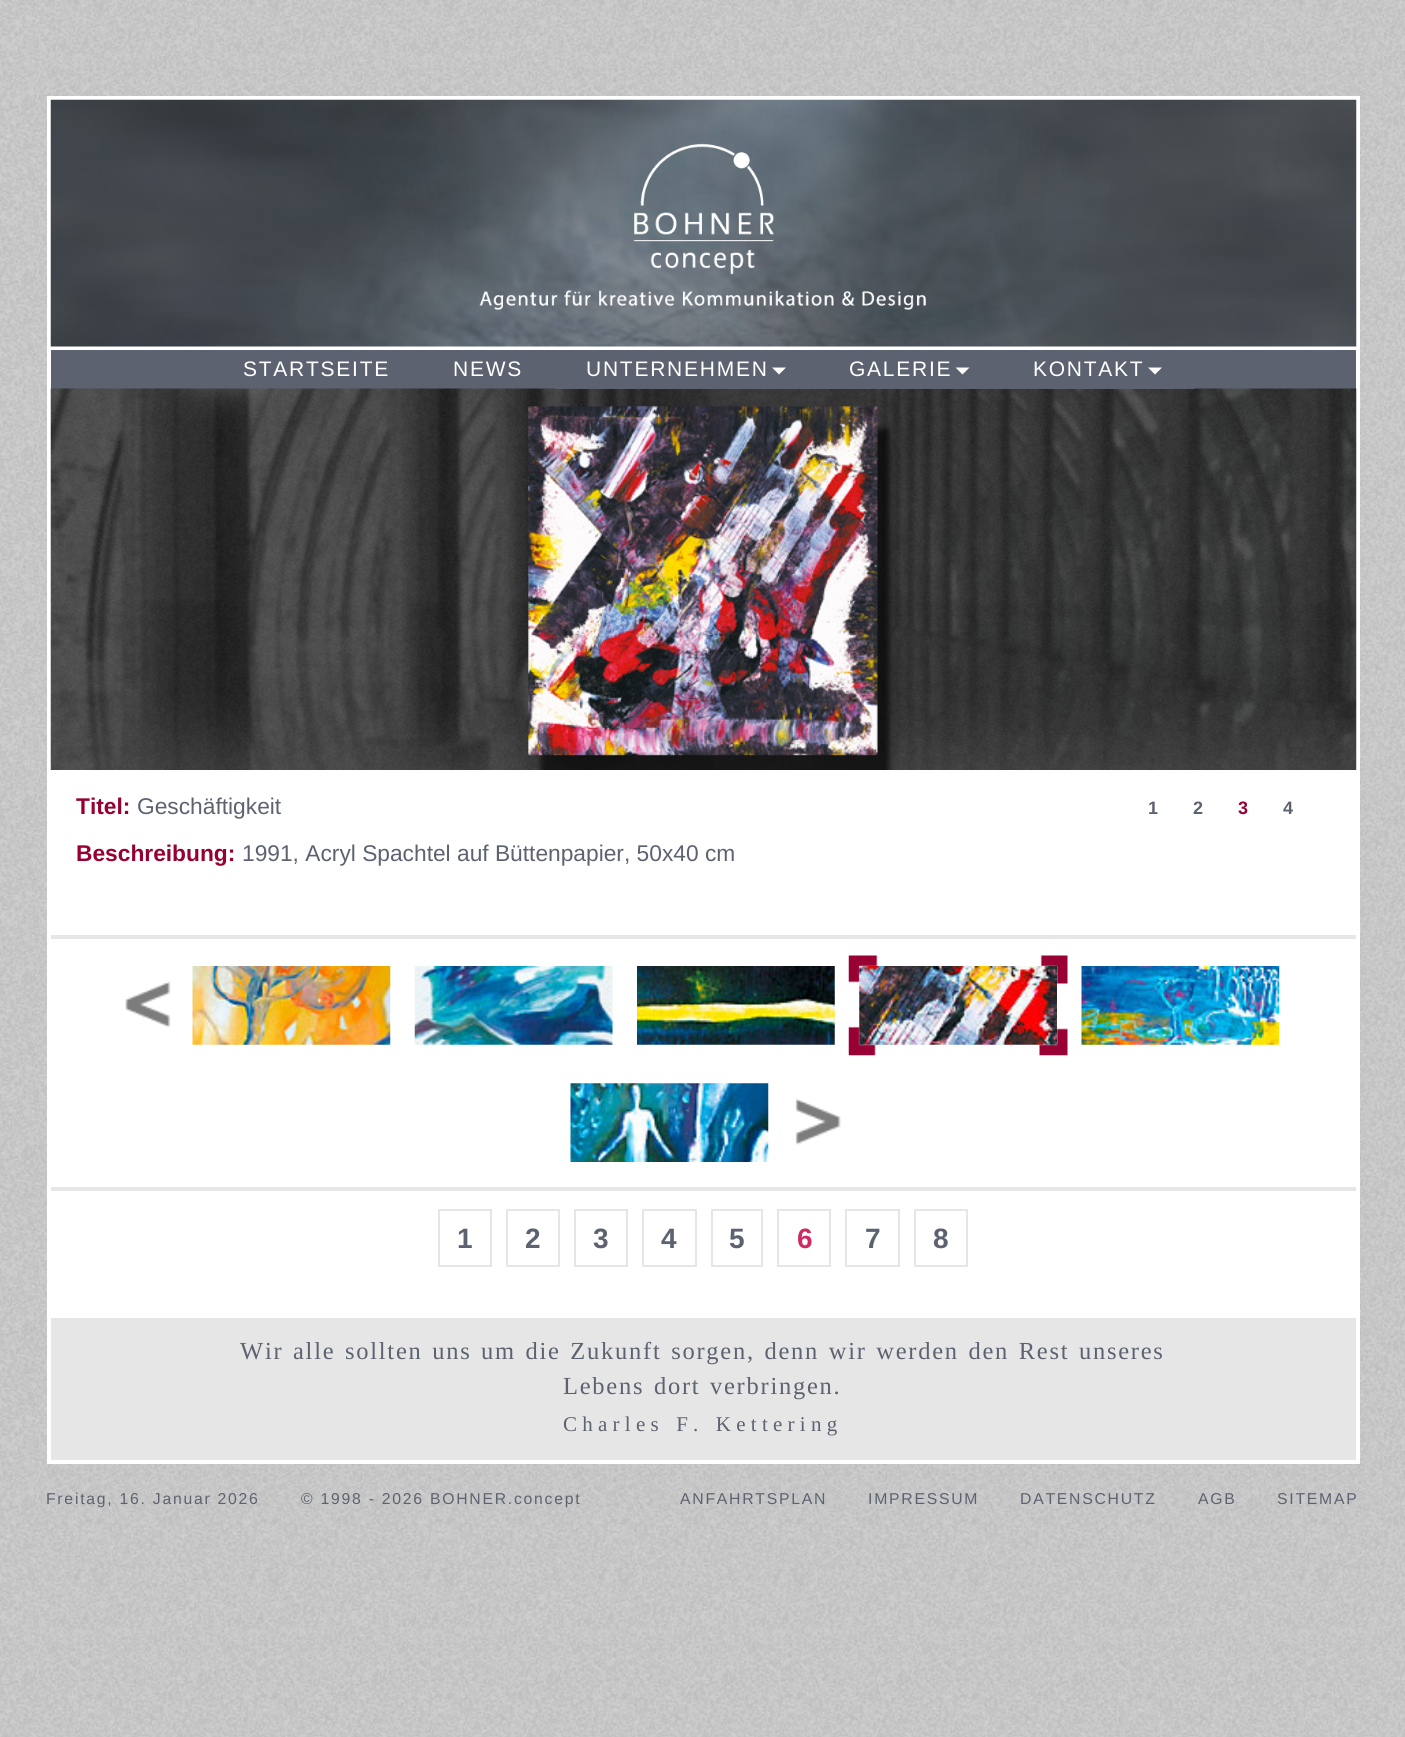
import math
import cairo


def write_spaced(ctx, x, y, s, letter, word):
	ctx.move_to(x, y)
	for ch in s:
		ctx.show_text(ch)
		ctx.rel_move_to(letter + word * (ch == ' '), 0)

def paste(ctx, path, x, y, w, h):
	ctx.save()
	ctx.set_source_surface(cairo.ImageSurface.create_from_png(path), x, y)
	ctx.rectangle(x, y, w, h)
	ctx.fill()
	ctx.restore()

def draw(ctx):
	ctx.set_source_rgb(1, 1, 1)
	ctx.paint()
	paste(ctx, 'media/1.png', 0, 0, 1405, 1737)
	ctx.set_source_rgb(1, 1, 1)
	ctx.rectangle(47, 96, 1313, 1222)
	ctx.fill()
	paste(ctx, 'media/2.png', 50, 99, 1307, 248)
	paste(ctx, 'media/3.png', 479, 143, 447, 167)
	ctx.set_source_rgb(0.365, 0.384, 0.439)
	ctx.rectangle(51, 350, 1305, 39)
	ctx.fill()
	ctx.select_font_face('Liberation Sans')
	ctx.set_font_size(21)
	ctx.set_source_rgb(1, 1, 1)
	write_spaced(ctx, 243, 376, 'STARTSEITE', 1.75, 0)
	write_spaced(ctx, 453, 376, 'NEWS', 1.75, 0)
	paste(ctx, 'media/4.png', 50, 388, 1307, 382)
	ctx.set_source_rgb(0.365, 0.384, 0.439)
	ctx.rectangle(555, 388, 639, 1)
	ctx.fill()
	ctx.set_source_rgb(1, 1, 1)
	write_spaced(ctx, 586, 376, 'UNTERNEHMEN', 1.75, 0)
	ctx.new_path()
	ctx.move_to(772, 367.5)
	ctx.line_to(786, 367.5)
	ctx.line_to(779, 374.5)
	ctx.close_path()
	ctx.fill()
	write_spaced(ctx, 849, 376, 'GALERIE', 1.75, 0)
	ctx.new_path()
	ctx.move_to(955.5, 367.5)
	ctx.line_to(969.5, 367.5)
	ctx.line_to(962.5, 374.5)
	ctx.close_path()
	ctx.fill()
	write_spaced(ctx, 1033, 376, 'KONTAKT', 1.75, 0)
	ctx.new_path()
	ctx.move_to(1148, 367.5)
	ctx.line_to(1162, 367.5)
	ctx.line_to(1155, 374.5)
	ctx.close_path()
	ctx.fill()
	ctx.select_font_face('Liberation Sans', cairo.FONT_SLANT_NORMAL, cairo.FONT_WEIGHT_BOLD)
	ctx.set_font_size(22.75)
	ctx.set_source_rgb(0.592, 0, 0.2)
	ctx.move_to(76, 814)
	ctx.show_text('Titel:')
	ctx.select_font_face('Liberation Sans')
	ctx.set_source_rgb(0.365, 0.384, 0.439)
	ctx.move_to(137, 814)
	ctx.show_text('Geschäftigkeit')
	ctx.select_font_face('Liberation Sans', cairo.FONT_SLANT_NORMAL, cairo.FONT_WEIGHT_BOLD)
	ctx.set_source_rgb(0.592, 0, 0.2)
	ctx.move_to(76, 861)
	ctx.show_text('Beschreibung:')
	ctx.select_font_face('Liberation Sans')
	ctx.set_source_rgb(0.365, 0.384, 0.439)
	ctx.move_to(242, 861)
	ctx.show_text('1991, Acryl Spachtel auf Büttenpapier, 50x40 cm')
	ctx.select_font_face('Liberation Sans', cairo.FONT_SLANT_NORMAL, cairo.FONT_WEIGHT_BOLD)
	ctx.set_font_size(18)
	ctx.move_to(1148, 814)
	ctx.show_text('1')
	ctx.move_to(1193, 814)
	ctx.show_text('2')
	ctx.set_source_rgb(0.592, 0, 0.2)
	ctx.move_to(1238, 814)
	ctx.show_text('3')
	ctx.set_source_rgb(0.365, 0.384, 0.439)
	ctx.move_to(1283, 814)
	ctx.show_text('4')
	ctx.set_source_rgb(0.902, 0.902, 0.902)
	ctx.rectangle(51, 935, 1305, 4)
	ctx.fill()
	paste(ctx, 'media/5.png', 125, 981, 46, 47)
	paste(ctx, 'media/6.png', 192, 966, 199, 79)
	paste(ctx, 'media/7.png', 414, 966, 199, 79)
	paste(ctx, 'media/8.png', 637, 966, 198, 79)
	paste(ctx, 'media/9.png', 848, 955, 220, 101)
	paste(ctx, 'media/10.png', 859, 966, 198, 79)
	paste(ctx, 'media/11.png', 1081, 966, 199, 79)
	paste(ctx, 'media/12.png', 570, 1083, 199, 79)
	paste(ctx, 'media/13.png', 795, 1098, 46, 47)
	ctx.rectangle(51, 1187, 1305, 4)
	ctx.fill()
	ctx.rectangle(439, 1210, 52, 56)
	ctx.stroke()
	ctx.set_font_size(28)
	ctx.set_source_rgb(0.365, 0.384, 0.439)
	ctx.move_to(457, 1248)
	ctx.show_text('1')
	ctx.rectangle(507, 1210, 52, 56)
	ctx.set_source_rgb(0.902, 0.902, 0.902)
	ctx.stroke()
	ctx.set_source_rgb(0.365, 0.384, 0.439)
	ctx.move_to(525, 1248)
	ctx.show_text('2')
	ctx.rectangle(575, 1210, 52, 56)
	ctx.set_source_rgb(0.902, 0.902, 0.902)
	ctx.stroke()
	ctx.set_source_rgb(0.365, 0.384, 0.439)
	ctx.move_to(593, 1248)
	ctx.show_text('3')
	ctx.rectangle(643, 1210, 53, 56)
	ctx.set_source_rgb(0.902, 0.902, 0.902)
	ctx.stroke()
	ctx.set_source_rgb(0.365, 0.384, 0.439)
	ctx.move_to(661, 1248)
	ctx.show_text('4')
	ctx.rectangle(712, 1210, 50, 56)
	ctx.set_source_rgb(0.902, 0.902, 0.902)
	ctx.stroke()
	ctx.set_source_rgb(0.365, 0.384, 0.439)
	ctx.move_to(729, 1248)
	ctx.show_text('5')
	ctx.rectangle(778, 1210, 52, 56)
	ctx.set_source_rgb(0.902, 0.902, 0.902)
	ctx.stroke()
	ctx.set_source_rgb(0.808, 0.169, 0.392)
	ctx.move_to(797, 1248)
	ctx.show_text('6')
	ctx.rectangle(846, 1210, 53, 56)
	ctx.set_source_rgb(0.902, 0.902, 0.902)
	ctx.stroke()
	ctx.set_source_rgb(0.365, 0.384, 0.439)
	ctx.move_to(865, 1248)
	ctx.show_text('7')
	ctx.rectangle(915, 1210, 52, 56)
	ctx.set_source_rgb(0.902, 0.902, 0.902)
	ctx.stroke()
	ctx.set_source_rgb(0.365, 0.384, 0.439)
	ctx.move_to(933, 1248)
	ctx.show_text('8')
	ctx.set_source_rgb(0.902, 0.902, 0.902)
	ctx.rectangle(51, 1318, 1305, 142)
	ctx.fill()
	ctx.set_source_rgb(1, 1, 1)
	ctx.rectangle(1356, 1318, 4, 145)
	ctx.rectangle(47, 1460, 1313, 4)
	ctx.rectangle(47, 1318, 4, 145)
	ctx.fill()
	ctx.select_font_face('Liberation Serif')
	ctx.set_font_size(24.5)
	ctx.set_source_rgb(0.365, 0.384, 0.439)
	write_spaced(ctx, 240, 1359, 'Wir alle sollten uns um die Zukunft sorgen, denn wir werden den Rest unseres', 1.75, 1.75)
	write_spaced(ctx, 563, 1394, 'Lebens dort verbringen.', 1.75, 1.75)
	ctx.set_font_size(21)
	write_spaced(ctx, 563, 1431, 'Charles F. Kettering', 5.25, 1.75)
	ctx.select_font_face('Liberation Sans')
	ctx.set_font_size(15.75)
	for x, y, s in [
		(46, 1504, 'Freitag, 16. Januar 2026'),
		(301, 1504, '© 1998 - 2026 BOHNER.concept'),
		(680, 1504, 'ANFAHRTSPLAN'),
		(868, 1504, 'IMPRESSUM'),
		(1020, 1504, 'DATENSCHUTZ'),
		(1198, 1504, 'AGB'),
		(1277, 1504, 'SITEMAP'),
	]:
		write_spaced(ctx, x, y, s, 1.75, 0)


surface = cairo.ImageSurface(cairo.FORMAT_RGB24, 1405, 1737)
ctx = cairo.Context(surface)
options = cairo.FontOptions()
options.set_hint_metrics(cairo.HINT_METRICS_OFF)
options.set_hint_style(cairo.HINT_STYLE_NONE)
ctx.set_font_options(options)
ctx.set_miter_limit(4)
draw(ctx)
surface.write_to_png('image.png')
